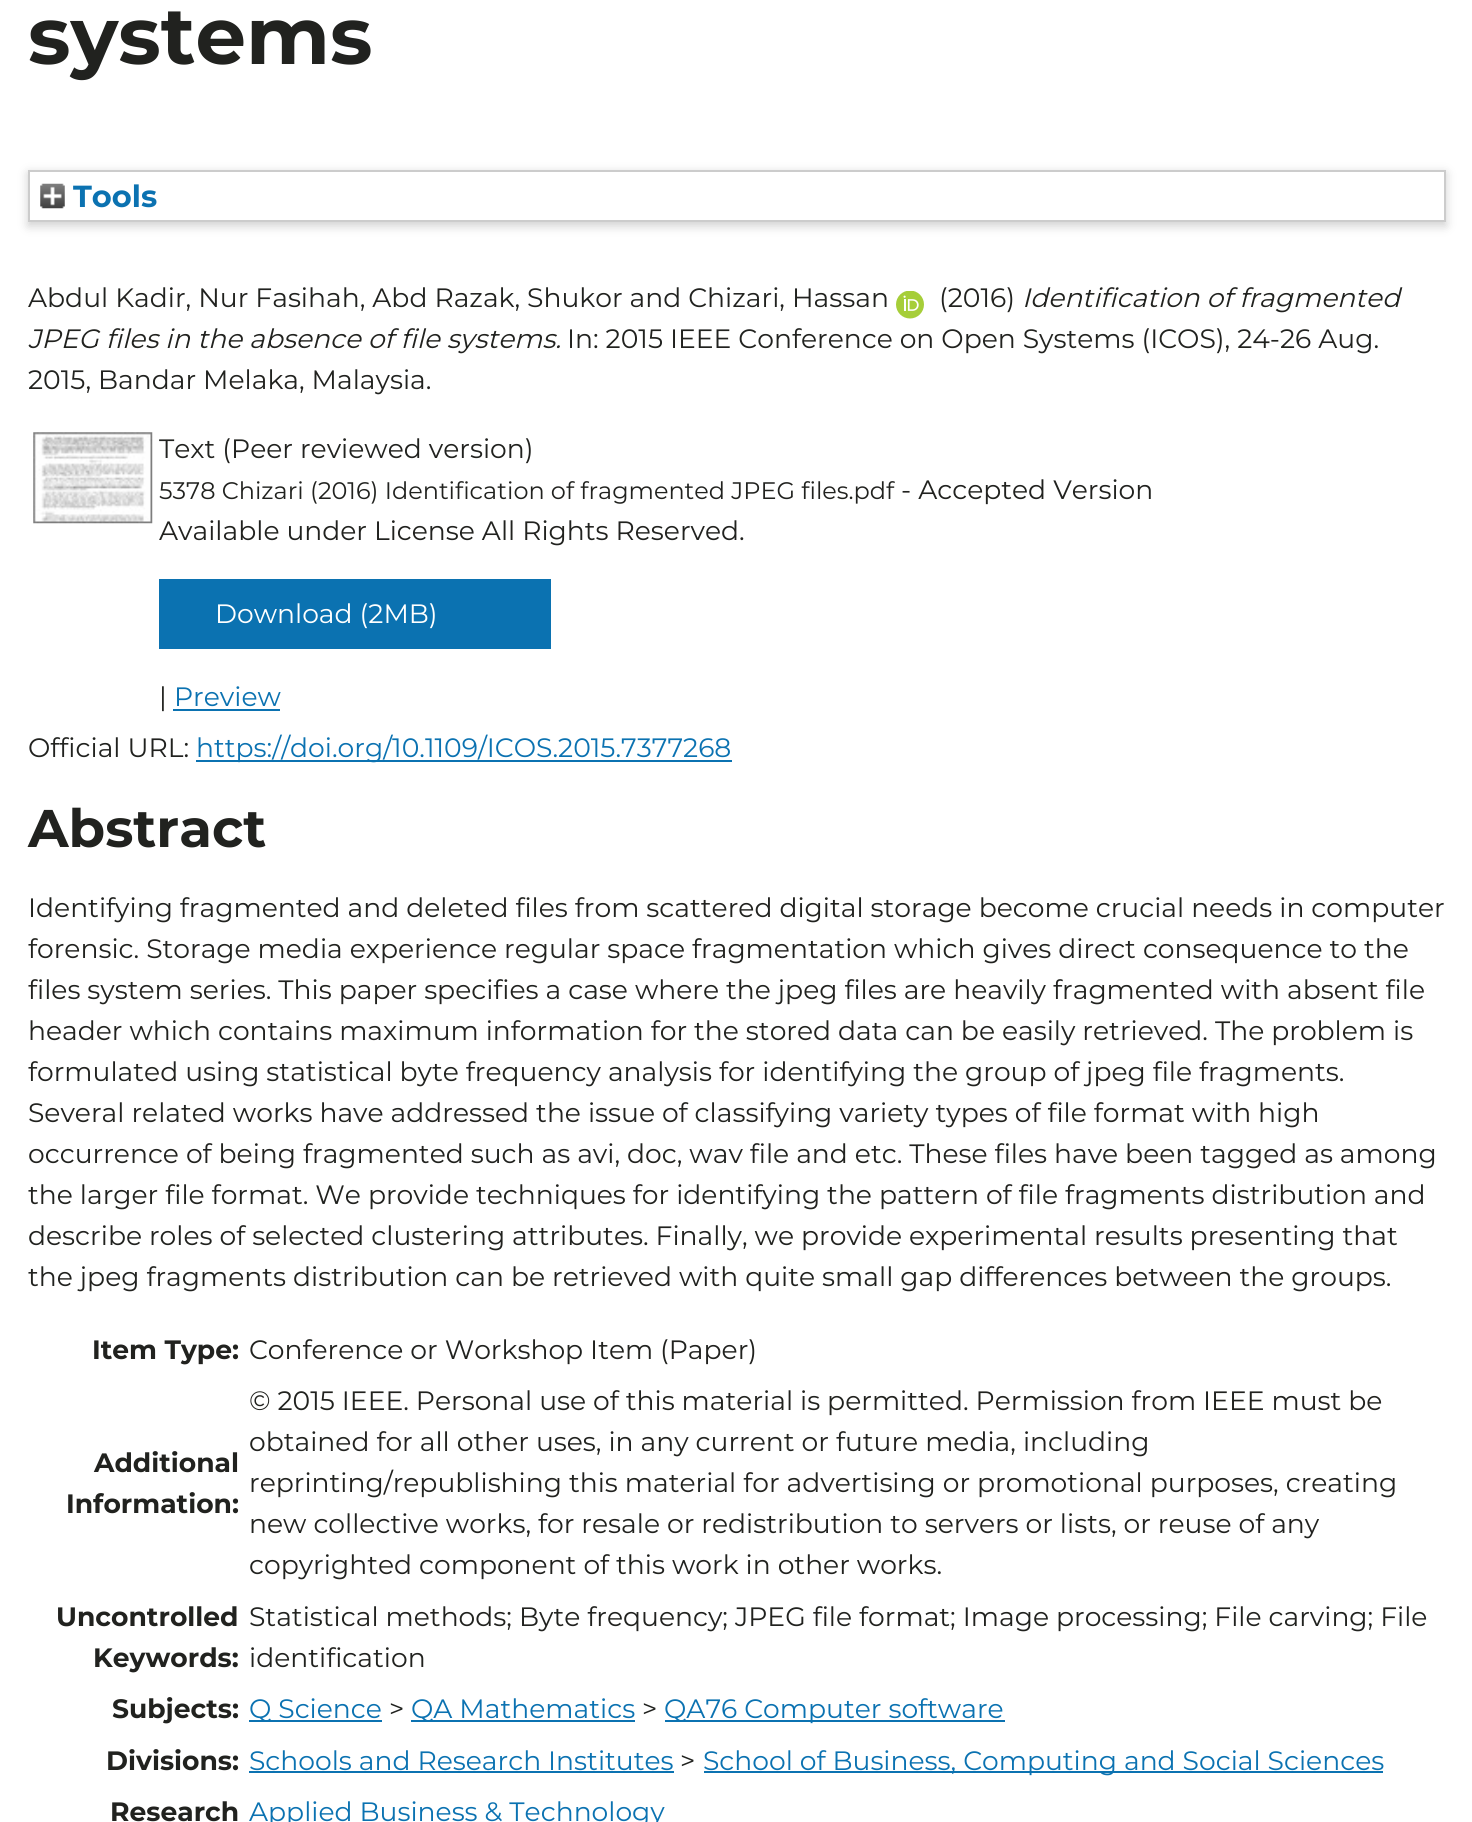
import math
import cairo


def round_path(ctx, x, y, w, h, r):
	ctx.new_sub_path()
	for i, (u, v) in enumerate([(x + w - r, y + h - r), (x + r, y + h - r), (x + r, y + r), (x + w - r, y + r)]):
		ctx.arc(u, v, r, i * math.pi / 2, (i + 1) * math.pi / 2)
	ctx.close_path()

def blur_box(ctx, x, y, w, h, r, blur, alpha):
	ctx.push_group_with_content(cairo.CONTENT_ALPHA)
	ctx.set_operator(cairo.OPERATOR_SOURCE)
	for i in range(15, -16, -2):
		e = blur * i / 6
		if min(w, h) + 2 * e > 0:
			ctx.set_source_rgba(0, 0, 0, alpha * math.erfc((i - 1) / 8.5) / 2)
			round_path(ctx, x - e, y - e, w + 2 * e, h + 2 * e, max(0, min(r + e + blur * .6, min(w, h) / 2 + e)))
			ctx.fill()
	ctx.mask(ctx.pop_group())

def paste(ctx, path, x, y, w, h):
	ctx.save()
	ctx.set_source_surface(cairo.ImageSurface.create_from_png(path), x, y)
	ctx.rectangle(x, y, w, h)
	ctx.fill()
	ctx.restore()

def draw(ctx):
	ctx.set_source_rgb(1, 1, 1)
	ctx.paint()
	ctx.select_font_face('Montserrat', cairo.FONT_SLANT_NORMAL, cairo.FONT_WEIGHT_BOLD)
	ctx.set_font_size(80)
	ctx.set_source_rgb(0.129, 0.133, 0.122)
	ctx.move_to(28, 64)
	ctx.show_text('systems')
	ctx.set_source_rgb(0.392, 0.392, 0.392)
	blur_box(ctx, 28, 173, 1418, 53, 0, 5, 0.3)
	ctx.set_source_rgb(1, 1, 1)
	ctx.rectangle(29, 171, 1416, 50)
	ctx.fill_preserve()
	ctx.set_source_rgb(0.8, 0.8, 0.8)
	ctx.stroke()
	paste(ctx, 'media/1.png', 40, 183, 25, 26)
	ctx.set_font_size(30.5)
	ctx.set_source_rgb(0.043, 0.447, 0.694)
	ctx.move_to(73, 207)
	ctx.show_text('Tools')
	ctx.select_font_face('Montserrat')
	ctx.set_font_size(26.6)
	ctx.set_source_rgb(0.129, 0.133, 0.122)
	ctx.move_to(28, 307)
	ctx.show_text('Abdul Kadir, Nur Fasihah, Abd Razak, Shukor and Chizari, Hassan')
	paste(ctx, 'media/2.png', 896, 291, 28, 28)
	ctx.move_to(939, 307)
	ctx.show_text('(2016)')
	ctx.select_font_face('Montserrat', cairo.FONT_SLANT_ITALIC)
	ctx.move_to(1022, 307)
	ctx.show_text('Identification of fragmented')
	ctx.move_to(28, 348)
	ctx.show_text('JPEG files in the absence of file systems.')
	ctx.select_font_face('Montserrat')
	ctx.move_to(567, 348)
	ctx.show_text('In: 2015 IEEE Conference on Open Systems (ICOS), 24-26 Aug.')
	ctx.move_to(28, 389)
	ctx.show_text('2015, Bandar Melaka, Malaysia.')
	paste(ctx, 'media/3.png', 33, 432, 120, 92)
	ctx.move_to(159, 458)
	ctx.show_text('Text (Peer reviewed version)')
	ctx.set_font_size(23.95)
	ctx.move_to(159, 499)
	ctx.show_text('5378 Chizari (2016) Identification of fragmented JPEG files.pdf')
	ctx.set_font_size(26.6)
	ctx.move_to(901, 499)
	ctx.show_text('- Accepted Version')
	ctx.move_to(159, 540)
	ctx.show_text('Available under License All Rights Reserved.')
	ctx.set_source_rgb(0.043, 0.447, 0.694)
	ctx.rectangle(159, 579, 392, 70)
	ctx.fill()
	ctx.set_source_rgb(1, 1, 1)
	ctx.move_to(215, 623)
	ctx.show_text('Download (2MB)')
	ctx.set_source_rgb(0.129, 0.133, 0.122)
	ctx.move_to(159, 706)
	ctx.show_text('|')
	ctx.set_source_rgb(0.043, 0.447, 0.694)
	ctx.move_to(174, 706)
	ctx.show_text('Preview')
	ctx.rectangle(173, 709, 107, 2)
	ctx.fill()
	ctx.set_source_rgb(0.129, 0.133, 0.122)
	ctx.move_to(28, 757)
	ctx.show_text('Official URL:')
	ctx.set_source_rgb(0.043, 0.447, 0.694)
	ctx.rectangle(196, 760, 536, 2)
	ctx.fill()
	ctx.move_to(196, 757)
	ctx.show_text('https://doi.org/10.1109/ICOS.2015.7377268')
	ctx.select_font_face('Montserrat', cairo.FONT_SLANT_NORMAL, cairo.FONT_WEIGHT_BOLD)
	ctx.set_font_size(53)
	ctx.set_source_rgb(0.129, 0.133, 0.122)
	ctx.move_to(28, 847)
	ctx.show_text('Abstract')
	ctx.select_font_face('Montserrat')
	ctx.set_font_size(26.6)
	for x, y, s in [
		(28, 917, 'Identifying fragmented and deleted files from scattered digital storage become crucial needs in computer'),
		(28, 958, 'forensic. Storage media experience regular space fragmentation which gives direct consequence to the'),
		(28, 999, 'files system series. This paper specifies a case where the jpeg files are heavily fragmented with absent file'),
		(28, 1040, 'header which contains maximum information for the stored data can be easily retrieved. The problem is'),
		(28, 1081, 'formulated using statistical byte frequency analysis for identifying the group of jpeg file fragments.'),
		(28, 1122, 'Several related works have addressed the issue of classifying variety types of file format with high'),
		(28, 1163, 'occurrence of being fragmented such as avi, doc, wav file and etc. These files have been tagged as among'),
		(28, 1204, 'the larger file format. We provide techniques for identifying the pattern of file fragments distribution and'),
		(28, 1245, 'describe roles of selected clustering attributes. Finally, we provide experimental results presenting that'),
		(28, 1286, 'the jpeg fragments distribution can be retrieved with quite small gap differences between the groups.'),
	]:
		ctx.move_to(x, y)
		ctx.show_text(s)
	ctx.select_font_face('Montserrat', cairo.FONT_SLANT_NORMAL, cairo.FONT_WEIGHT_BOLD)
	ctx.move_to(92, 1359)
	ctx.show_text('Item Type:')
	ctx.select_font_face('Montserrat')
	ctx.move_to(249, 1359)
	ctx.show_text('Conference or Workshop Item')
	ctx.move_to(660, 1359)
	ctx.show_text('(Paper)')
	ctx.select_font_face('Montserrat', cairo.FONT_SLANT_NORMAL, cairo.FONT_WEIGHT_BOLD)
	ctx.move_to(94, 1472)
	ctx.show_text('Additional')
	ctx.move_to(66, 1513)
	ctx.show_text('Information:')
	ctx.select_font_face('Montserrat')
	for x, y, s in [
		(249, 1410, '© 2015 IEEE. Personal use of this material is permitted. Permission from IEEE must be'),
		(249, 1451, 'obtained for all other uses, in any current or future media, including'),
		(249, 1492, 'reprinting/republishing this material for advertising or promotional purposes, creating'),
		(249, 1533, 'new collective works, for resale or redistribution to servers or lists, or reuse of any'),
		(249, 1574, 'copyrighted component of this work in other works.'),
	]:
		ctx.move_to(x, y)
		ctx.show_text(s)
	ctx.select_font_face('Montserrat', cairo.FONT_SLANT_NORMAL, cairo.FONT_WEIGHT_BOLD)
	ctx.move_to(56, 1626)
	ctx.show_text('Uncontrolled')
	ctx.move_to(93, 1667)
	ctx.show_text('Keywords:')
	ctx.select_font_face('Montserrat')
	ctx.move_to(249, 1626)
	ctx.show_text('Statistical methods; Byte frequency; JPEG file format; Image processing; File carving; File')
	ctx.move_to(249, 1667)
	ctx.show_text('identification')
	ctx.select_font_face('Montserrat', cairo.FONT_SLANT_NORMAL, cairo.FONT_WEIGHT_BOLD)
	ctx.move_to(112, 1718)
	ctx.show_text('Subjects:')
	ctx.set_source_rgb(0.043, 0.447, 0.694)
	ctx.rectangle(249, 1720, 133, 2)
	ctx.fill()
	ctx.select_font_face('Montserrat')
	ctx.move_to(249, 1718)
	ctx.show_text('Q Science')
	ctx.set_source_rgb(0.129, 0.133, 0.122)
	ctx.move_to(389, 1718)
	ctx.show_text('>')
	ctx.set_source_rgb(0.043, 0.447, 0.694)
	ctx.rectangle(411, 1720, 224, 2)
	ctx.fill()
	ctx.move_to(411, 1718)
	ctx.show_text('QA Mathematics')
	ctx.set_source_rgb(0.129, 0.133, 0.122)
	ctx.move_to(642, 1718)
	ctx.show_text('>')
	ctx.set_source_rgb(0.043, 0.447, 0.694)
	ctx.rectangle(665, 1720, 340, 2)
	ctx.fill()
	ctx.move_to(664, 1718)
	ctx.show_text('QA76 Computer software')
	ctx.select_font_face('Montserrat', cairo.FONT_SLANT_NORMAL, cairo.FONT_WEIGHT_BOLD)
	ctx.set_source_rgb(0.129, 0.133, 0.122)
	ctx.move_to(106, 1770)
	ctx.show_text('Divisions:')
	ctx.select_font_face('Montserrat')
	ctx.set_source_rgb(0.043, 0.447, 0.694)
	ctx.move_to(249, 1770)
	ctx.show_text('Schools and Research Institutes')
	ctx.rectangle(249, 1771, 425, 2)
	ctx.fill()
	ctx.set_source_rgb(0.129, 0.133, 0.122)
	ctx.move_to(680, 1770)
	ctx.show_text('>')
	ctx.set_source_rgb(0.043, 0.447, 0.694)
	ctx.rectangle(704, 1771, 679, 2)
	ctx.fill()
	ctx.move_to(703, 1770)
	ctx.show_text('School of Business, Computing and Social Sciences')
	ctx.select_font_face('Montserrat', cairo.FONT_SLANT_NORMAL, cairo.FONT_WEIGHT_BOLD)
	ctx.set_source_rgb(0.129, 0.133, 0.122)
	ctx.move_to(110, 1821)
	ctx.show_text('Research')
	ctx.select_font_face('Montserrat')
	ctx.set_source_rgb(0.043, 0.447, 0.694)
	ctx.move_to(249, 1821)
	ctx.show_text('Applied Business & Technology')


surface = cairo.ImageSurface(cairo.FORMAT_RGB24, 1472, 1822)
ctx = cairo.Context(surface)
options = cairo.FontOptions()
options.set_hint_metrics(cairo.HINT_METRICS_OFF)
options.set_hint_style(cairo.HINT_STYLE_NONE)
ctx.set_font_options(options)
ctx.set_miter_limit(4)
draw(ctx)
surface.write_to_png('image.png')
